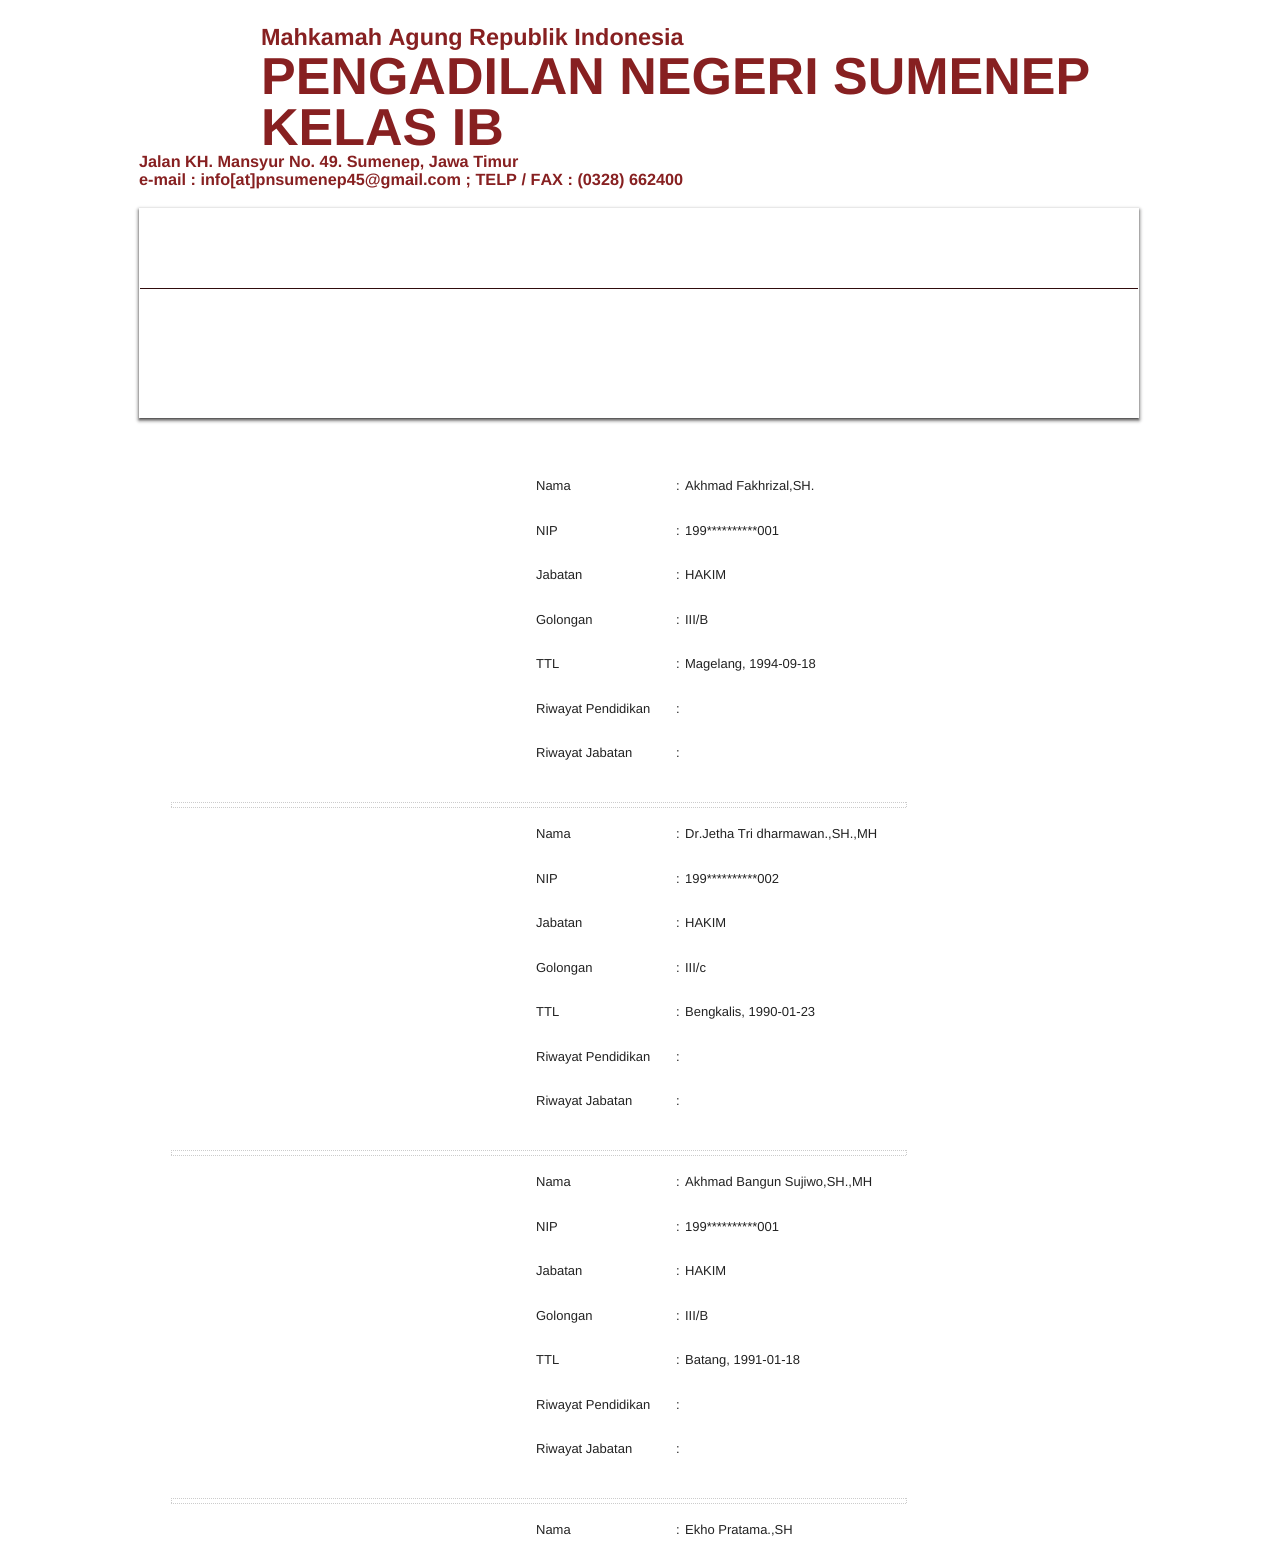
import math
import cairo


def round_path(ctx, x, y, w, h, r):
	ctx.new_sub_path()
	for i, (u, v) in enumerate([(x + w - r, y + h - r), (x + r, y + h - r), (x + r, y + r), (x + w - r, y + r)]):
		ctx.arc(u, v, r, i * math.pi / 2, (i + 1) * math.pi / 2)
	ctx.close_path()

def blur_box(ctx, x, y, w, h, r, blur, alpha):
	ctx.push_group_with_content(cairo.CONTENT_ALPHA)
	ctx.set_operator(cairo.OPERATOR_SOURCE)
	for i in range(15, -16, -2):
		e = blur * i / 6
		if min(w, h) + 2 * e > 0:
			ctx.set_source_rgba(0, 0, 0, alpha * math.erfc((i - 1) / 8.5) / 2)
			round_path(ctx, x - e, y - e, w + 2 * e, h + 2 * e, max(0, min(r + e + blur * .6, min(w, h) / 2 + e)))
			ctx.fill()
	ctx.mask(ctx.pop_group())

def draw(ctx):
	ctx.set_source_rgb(1, 1, 1)
	ctx.paint()
	ctx.select_font_face('Liberation Sans', cairo.FONT_SLANT_NORMAL, cairo.FONT_WEIGHT_BOLD)
	ctx.set_font_size(23.4)
	ctx.set_source_rgb(0.529, 0.125, 0.129)
	ctx.move_to(261, 45)
	ctx.show_text('Mahkamah Agung Republik Indonesia')
	ctx.set_font_size(52)
	ctx.move_to(261, 94)
	ctx.show_text('PENGADILAN NEGERI SUMENEP')
	ctx.move_to(261, 145)
	ctx.show_text('KELAS IB')
	ctx.set_font_size(16.25)
	ctx.move_to(139, 167)
	ctx.show_text('Jalan KH. Mansyur No. 49. Sumenep, Jawa Timur')
	ctx.move_to(139, 185)
	ctx.show_text('e-mail : info[at]pnsumenep45@gmail.com ; TELP / FAX : (0328) 662400')
	ctx.save()
	ctx.set_fill_rule(cairo.FILL_RULE_EVEN_ODD)
	ctx.new_path()
	ctx.move_to(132, 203)
	ctx.line_to(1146, 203)
	ctx.line_to(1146, 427)
	ctx.line_to(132, 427)
	ctx.close_path()
	ctx.move_to(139, 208)
	ctx.line_to(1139, 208)
	ctx.line_to(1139, 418)
	ctx.line_to(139, 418)
	ctx.close_path()
	ctx.clip()
	ctx.set_source_rgb(0.184, 0.18, 0.18)
	blur_box(ctx, 139, 210, 1000, 210, 0, 2, 1)
	ctx.restore()
	ctx.set_source_rgb(0.188, 0.047, 0.051)
	ctx.rectangle(140, 288, 998, 1)
	ctx.fill()
	ctx.select_font_face('Liberation Sans')
	ctx.set_font_size(13)
	ctx.set_source_rgb(0.133, 0.133, 0.133)
	for x, y, s in [
		(536, 490, 'Nama'),
		(676, 490, ':'),
		(685, 490, 'Akhmad Fakhrizal,SH.'),
		(536, 535, 'NIP'),
		(676, 535, ':'),
		(685, 535, '199**********001'),
		(536, 579, 'Jabatan'),
		(676, 579, ':'),
		(685, 579, 'HAKIM'),
		(536, 624, 'Golongan'),
		(676, 624, ':'),
		(685, 624, 'III/B'),
		(536, 668, 'TTL'),
		(676, 668, ':'),
		(685, 668, 'Magelang, 1994-09-18'),
		(536, 713, 'Riwayat Pendidikan'),
		(676, 713, ':'),
		(536, 757, 'Riwayat Jabatan'),
		(676, 757, ':'),
	]:
		ctx.move_to(x, y)
		ctx.show_text(s)
	ctx.new_path()
	ctx.move_to(171, 802.5)
	ctx.line_to(907, 802.5)
	ctx.set_source_rgb(0.8, 0.8, 0.8)
	ctx.set_line_width(1)
	ctx.set_dash([1, 1])
	ctx.stroke()
	ctx.new_path()
	ctx.move_to(906.5, 802)
	ctx.line_to(906.5, 803)
	ctx.move_to(906.5, 804)
	ctx.line_to(906.5, 805)
	ctx.move_to(906.5, 806)
	ctx.line_to(906.5, 807)
	ctx.set_dash([])
	ctx.stroke()
	ctx.new_path()
	ctx.move_to(171, 807.5)
	ctx.line_to(907, 807.5)
	ctx.set_dash([1, 1])
	ctx.stroke()
	ctx.new_path()
	ctx.move_to(171.5, 802)
	ctx.line_to(171.5, 803)
	ctx.move_to(171.5, 804)
	ctx.line_to(171.5, 805)
	ctx.move_to(171.5, 806)
	ctx.line_to(171.5, 807)
	ctx.set_dash([])
	ctx.stroke()
	ctx.set_source_rgb(0.133, 0.133, 0.133)
	for x, y, s in [
		(536, 838, 'Nama'),
		(676, 838, ':'),
		(685, 838, 'Dr.Jetha Tri dharmawan.,SH.,MH'),
		(536, 883, 'NIP'),
		(676, 883, ':'),
		(685, 883, '199**********002'),
		(536, 927, 'Jabatan'),
		(676, 927, ':'),
		(685, 927, 'HAKIM'),
		(536, 972, 'Golongan'),
		(676, 972, ':'),
		(685, 972, 'III/c'),
		(536, 1016, 'TTL'),
		(676, 1016, ':'),
		(685, 1016, 'Bengkalis, 1990-01-23'),
		(536, 1061, 'Riwayat Pendidikan'),
		(676, 1061, ':'),
		(536, 1105, 'Riwayat Jabatan'),
		(676, 1105, ':'),
	]:
		ctx.move_to(x, y)
		ctx.show_text(s)
	ctx.new_path()
	ctx.move_to(171, 1150.5)
	ctx.line_to(907, 1150.5)
	ctx.set_source_rgb(0.8, 0.8, 0.8)
	ctx.set_dash([1, 1])
	ctx.stroke()
	ctx.new_path()
	ctx.move_to(906.5, 1150)
	ctx.line_to(906.5, 1151)
	ctx.move_to(906.5, 1152)
	ctx.line_to(906.5, 1153)
	ctx.move_to(906.5, 1154)
	ctx.line_to(906.5, 1155)
	ctx.set_dash([])
	ctx.stroke()
	ctx.new_path()
	ctx.move_to(171, 1155.5)
	ctx.line_to(907, 1155.5)
	ctx.set_dash([1, 1])
	ctx.stroke()
	ctx.new_path()
	ctx.move_to(171.5, 1150)
	ctx.line_to(171.5, 1151)
	ctx.move_to(171.5, 1152)
	ctx.line_to(171.5, 1153)
	ctx.move_to(171.5, 1154)
	ctx.line_to(171.5, 1155)
	ctx.set_dash([])
	ctx.stroke()
	ctx.set_source_rgb(0.133, 0.133, 0.133)
	for x, y, s in [
		(536, 1186, 'Nama'),
		(676, 1186, ':'),
		(685, 1186, 'Akhmad Bangun Sujiwo,SH.,MH'),
		(536, 1231, 'NIP'),
		(676, 1231, ':'),
		(685, 1231, '199**********001'),
		(536, 1275, 'Jabatan'),
		(676, 1275, ':'),
		(685, 1275, 'HAKIM'),
		(536, 1320, 'Golongan'),
		(676, 1320, ':'),
		(685, 1320, 'III/B'),
		(536, 1364, 'TTL'),
		(676, 1364, ':'),
		(685, 1364, 'Batang, 1991-01-18'),
		(536, 1409, 'Riwayat Pendidikan'),
		(676, 1409, ':'),
		(536, 1453, 'Riwayat Jabatan'),
		(676, 1453, ':'),
	]:
		ctx.move_to(x, y)
		ctx.show_text(s)
	ctx.new_path()
	ctx.move_to(171, 1498.5)
	ctx.line_to(907, 1498.5)
	ctx.set_source_rgb(0.8, 0.8, 0.8)
	ctx.set_dash([1, 1])
	ctx.stroke()
	ctx.new_path()
	ctx.move_to(906.5, 1498)
	ctx.line_to(906.5, 1499)
	ctx.move_to(906.5, 1500)
	ctx.line_to(906.5, 1501)
	ctx.move_to(906.5, 1502)
	ctx.line_to(906.5, 1503)
	ctx.set_dash([])
	ctx.stroke()
	ctx.new_path()
	ctx.move_to(171, 1503.5)
	ctx.line_to(907, 1503.5)
	ctx.set_dash([1, 1])
	ctx.stroke()
	ctx.new_path()
	ctx.move_to(171.5, 1498)
	ctx.line_to(171.5, 1499)
	ctx.move_to(171.5, 1500)
	ctx.line_to(171.5, 1501)
	ctx.move_to(171.5, 1502)
	ctx.line_to(171.5, 1503)
	ctx.set_dash([])
	ctx.stroke()
	ctx.set_source_rgb(0.133, 0.133, 0.133)
	for x, y, s in [
		(536, 1534, 'Nama'),
		(676, 1534, ':'),
		(685, 1534, 'Ekho Pratama.,SH'),
	]:
		ctx.move_to(x, y)
		ctx.show_text(s)


surface = cairo.ImageSurface(cairo.FORMAT_RGB24, 1277, 1560)
ctx = cairo.Context(surface)
options = cairo.FontOptions()
options.set_hint_metrics(cairo.HINT_METRICS_OFF)
options.set_hint_style(cairo.HINT_STYLE_NONE)
ctx.set_font_options(options)
ctx.set_miter_limit(4)
draw(ctx)
surface.write_to_png('image.png')
